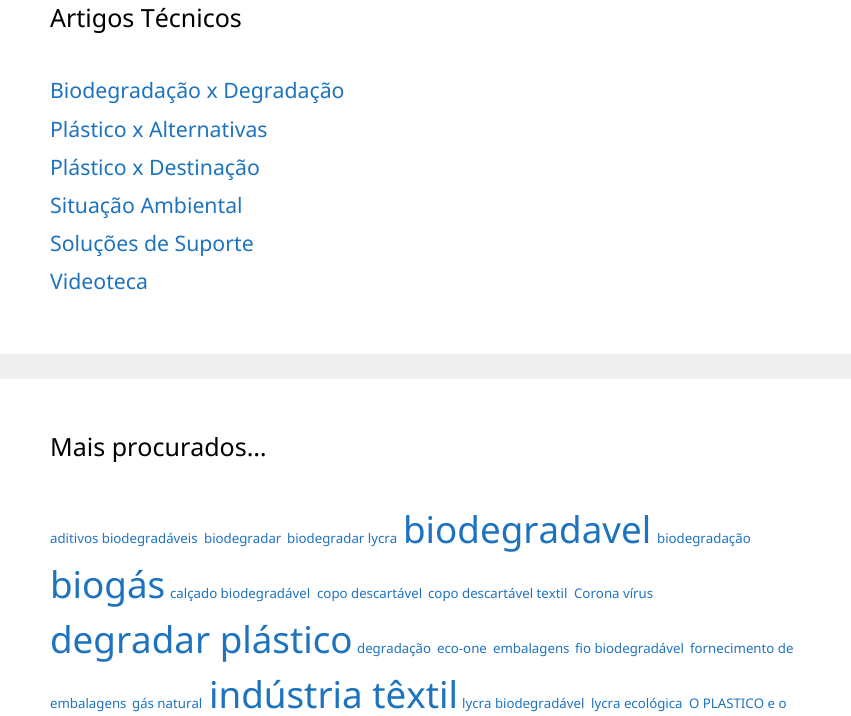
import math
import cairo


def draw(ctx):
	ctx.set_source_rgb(0.937, 0.937, 0.937)
	ctx.paint()
	ctx.set_source_rgb(1, 1, 1)
	ctx.rectangle(0, 0, 851, 354)
	ctx.fill()
	ctx.select_font_face('Noto Sans')
	ctx.set_font_size(25)
	ctx.set_source_rgb(0, 0, 0)
	ctx.move_to(50, 27)
	ctx.show_text('Artigos Técnicos')
	ctx.set_font_size(21.25)
	ctx.set_source_rgb(0.118, 0.451, 0.745)
	for x, y, s in [
		(50, 98, 'Biodegradação x Degradação'),
		(50, 137, 'Plástico x Alternativas'),
		(50, 175, 'Plástico x Destinação'),
		(50, 213, 'Situação Ambiental'),
		(50, 251, 'Soluções de Suporte'),
		(50, 289, 'Videoteca'),
	]:
		ctx.move_to(x, y)
		ctx.show_text(s)
	ctx.set_source_rgb(1, 1, 1)
	ctx.rectangle(0, 379, 851, 337)
	ctx.fill()
	ctx.set_font_size(25)
	ctx.set_source_rgb(0, 0, 0)
	ctx.move_to(50, 456)
	ctx.show_text('Mais procurados…')
	ctx.set_font_size(13.25)
	ctx.set_source_rgb(0.118, 0.451, 0.745)
	for x, y, s in [
		(50, 543, 'aditivos biodegradáveis'),
		(204, 543, 'biodegradar'),
		(287, 543, 'biodegradar lycra'),
	]:
		ctx.move_to(x, y)
		ctx.show_text(s)
	ctx.set_font_size(36.75)
	ctx.move_to(403, 543)
	ctx.show_text('biodegradavel')
	ctx.set_font_size(13.25)
	ctx.move_to(657, 543)
	ctx.show_text('biodegradação')
	ctx.set_font_size(36.75)
	ctx.move_to(50, 598)
	ctx.show_text('biogás')
	ctx.set_font_size(13.25)
	for x, y, s in [
		(170, 598, 'calçado biodegradável'),
		(317, 598, 'copo descartável'),
		(428, 598, 'copo descartável textil'),
		(574, 598, 'Corona vírus'),
	]:
		ctx.move_to(x, y)
		ctx.show_text(s)
	ctx.set_font_size(36.75)
	ctx.move_to(50, 653)
	ctx.show_text('degradar plástico')
	ctx.set_font_size(13.25)
	for x, y, s in [
		(357, 653, 'degradação'),
		(437, 653, 'eco-one'),
		(493, 653, 'embalagens'),
		(575, 653, 'fio biodegradável'),
		(690, 653, 'fornecimento de'),
		(50, 708, 'embalagens'),
		(132, 708, 'gás natural'),
	]:
		ctx.move_to(x, y)
		ctx.show_text(s)
	ctx.set_font_size(36.75)
	ctx.move_to(209, 708)
	ctx.show_text('indústria têxtil')
	ctx.set_font_size(13.25)
	for x, y, s in [
		(462, 708, 'lycra biodegradável'),
		(591, 708, 'lycra ecológica'),
		(689, 708, 'O PLASTICO e o'),
	]:
		ctx.move_to(x, y)
		ctx.show_text(s)


surface = cairo.ImageSurface(cairo.FORMAT_RGB24, 851, 716)
ctx = cairo.Context(surface)
options = cairo.FontOptions()
options.set_hint_metrics(cairo.HINT_METRICS_OFF)
options.set_hint_style(cairo.HINT_STYLE_NONE)
ctx.set_font_options(options)
ctx.set_miter_limit(4)
draw(ctx)
surface.write_to_png('image.png')
